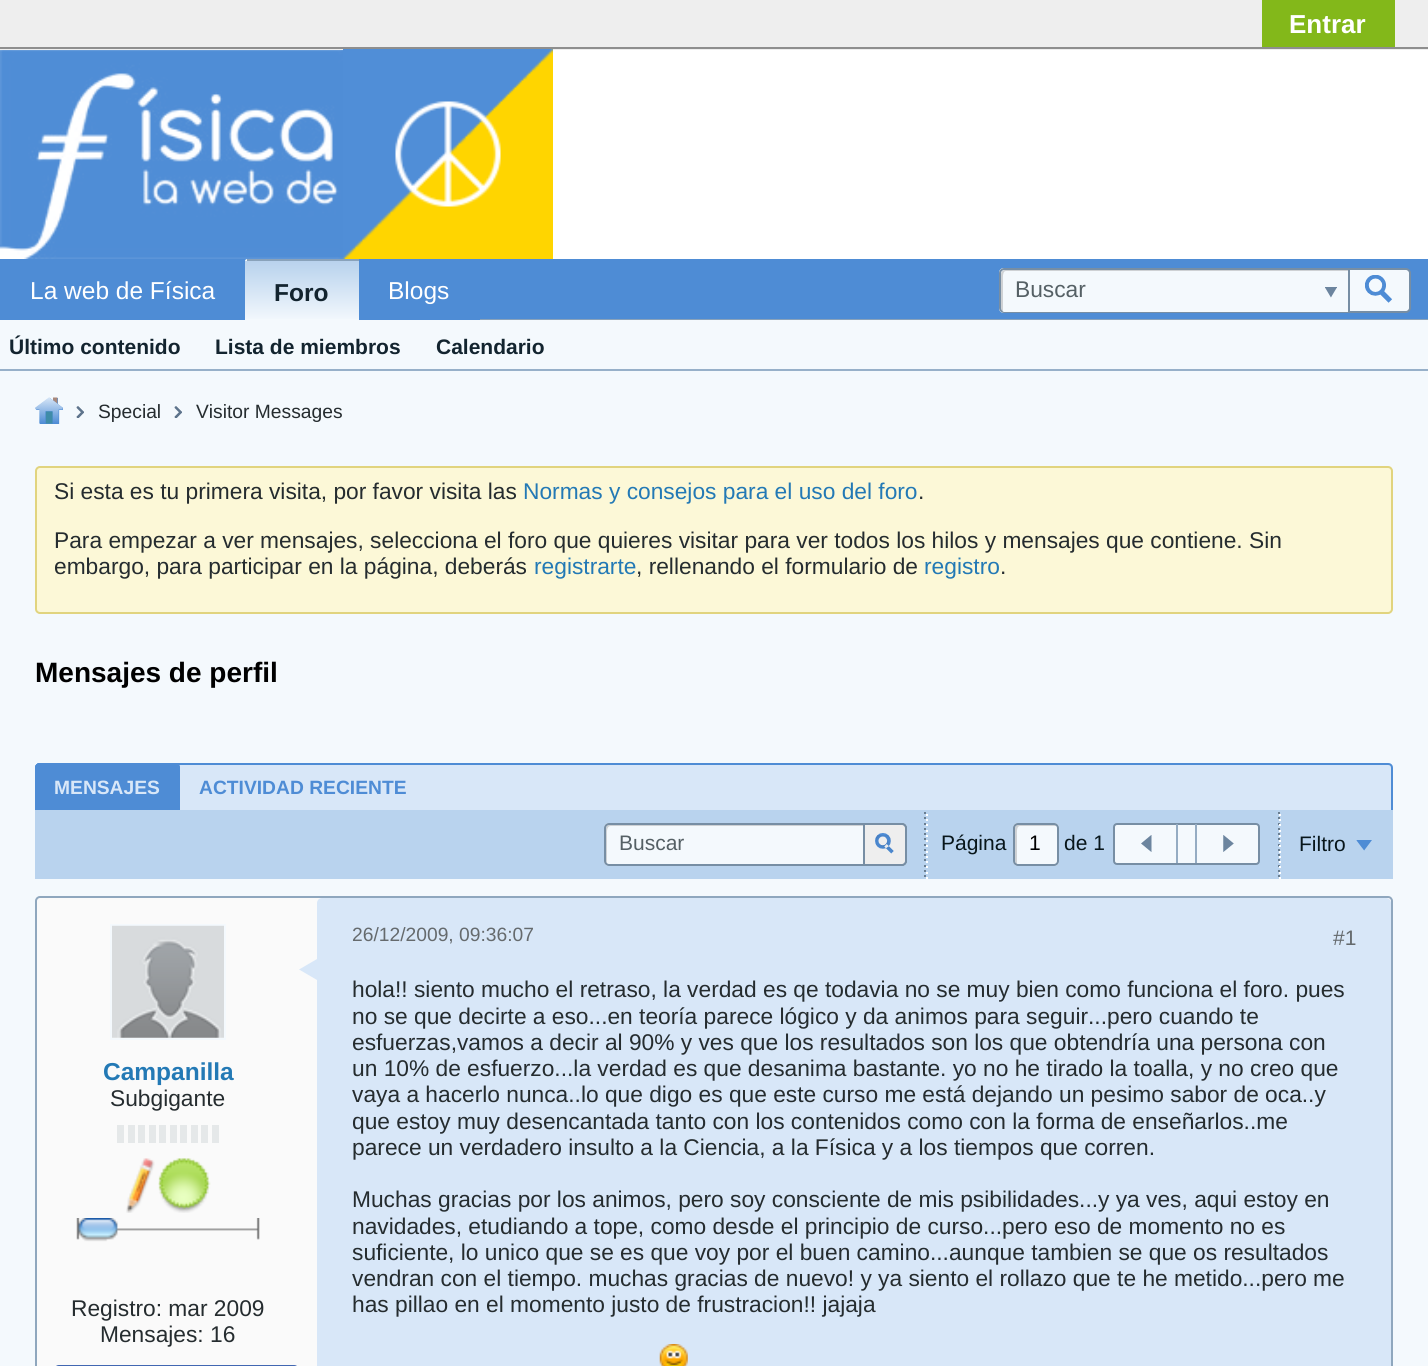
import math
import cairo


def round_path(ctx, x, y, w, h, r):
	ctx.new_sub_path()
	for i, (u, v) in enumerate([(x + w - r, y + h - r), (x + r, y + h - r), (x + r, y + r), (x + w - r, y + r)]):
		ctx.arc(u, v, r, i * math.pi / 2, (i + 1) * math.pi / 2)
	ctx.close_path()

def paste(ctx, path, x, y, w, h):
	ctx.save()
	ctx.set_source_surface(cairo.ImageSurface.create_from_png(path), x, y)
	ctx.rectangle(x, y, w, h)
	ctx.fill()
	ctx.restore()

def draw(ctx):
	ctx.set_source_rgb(0.957, 0.976, 0.992)
	ctx.paint()
	ctx.set_source_rgb(0.933, 0.933, 0.933)
	ctx.rectangle(0, 0, 1428, 50)
	ctx.fill()
	ctx.set_source_rgb(0.514, 0.722, 0.102)
	ctx.rectangle(1262, 0, 133, 47)
	ctx.fill()
	ctx.select_font_face('Liberation Sans', cairo.FONT_SLANT_NORMAL, cairo.FONT_WEIGHT_BOLD)
	ctx.set_font_size(26)
	ctx.set_source_rgb(1, 1, 1)
	ctx.move_to(1289, 33)
	ctx.show_text('Entrar')
	ctx.set_source_rgb(0.557, 0.557, 0.557)
	ctx.rectangle(0, 47, 1428, 2)
	ctx.fill()
	ctx.set_source_rgb(0.306, 0.549, 0.835)
	ctx.rectangle(0, 259, 1428, 60)
	ctx.fill()
	ctx.set_source_rgb(0.537, 0.635, 0.729)
	ctx.rectangle(480, 319, 948, 1)
	ctx.fill()
	ctx.set_source_rgb(0.306, 0.549, 0.835)
	ctx.new_path()
	ctx.move_to(2, 259)
	ctx.line_to(243, 259)
	ctx.curve_to(244, 259, 245, 260, 245, 261)
	ctx.line_to(245, 320)
	ctx.line_to(0, 320)
	ctx.line_to(0, 261)
	ctx.curve_to(0, 260, 1, 259, 2, 259)
	ctx.close_path()
	ctx.fill()
	ctx.select_font_face('Liberation Sans')
	ctx.set_font_size(24.5)
	ctx.set_source_rgb(1, 1, 1)
	ctx.move_to(30, 299)
	ctx.show_text('La web de Física')
	gradient = cairo.LinearGradient(302, 200, 302, 261)
	gradient.add_color_stop_rgba(0, 0.722, 0.824, 0.929, 1)
	gradient.add_color_stop_rgba(1, 0.957, 0.976, 0.992, 1)
	ctx.set_source(gradient)
	ctx.new_path()
	ctx.move_to(247, 259)
	ctx.line_to(357, 259)
	ctx.curve_to(358, 259, 359, 260, 359, 261)
	ctx.line_to(245, 261)
	ctx.curve_to(245, 260, 246, 259, 247, 259)
	ctx.close_path()
	ctx.fill()
	gradient = cairo.LinearGradient(302, 261, 302, 322)
	gradient.add_color_stop_rgba(0, 0.722, 0.824, 0.929, 1)
	gradient.add_color_stop_rgba(1, 0.957, 0.976, 0.992, 1)
	ctx.set_source(gradient)
	ctx.rectangle(245, 261, 114, 58)
	ctx.fill()
	ctx.set_source_rgb(0.537, 0.635, 0.729)
	ctx.rectangle(247, 259, 112, 2)
	ctx.fill()
	ctx.select_font_face('Liberation Sans', cairo.FONT_SLANT_NORMAL, cairo.FONT_WEIGHT_BOLD)
	ctx.set_source_rgb(0.075, 0.141, 0.184)
	ctx.move_to(274, 301)
	ctx.show_text('Foro')
	ctx.set_source_rgb(0.306, 0.549, 0.835)
	ctx.new_path()
	ctx.move_to(361, 259)
	ctx.line_to(478, 259)
	ctx.curve_to(479, 259, 480, 260, 480, 261)
	ctx.line_to(480, 320)
	ctx.line_to(359, 320)
	ctx.line_to(359, 261)
	ctx.curve_to(359, 260, 360, 259, 361, 259)
	ctx.close_path()
	ctx.fill()
	ctx.select_font_face('Liberation Sans')
	ctx.set_source_rgb(1, 1, 1)
	ctx.move_to(388, 299)
	ctx.show_text('Blogs')
	ctx.rectangle(553, 50, 875, 209)
	ctx.fill()
	paste(ctx, 'media/1.png', 0, 50, 343, 209)
	paste(ctx, 'media/2.png', 343, 49, 210, 210)
	ctx.set_source_rgb(0.957, 0.976, 0.992)
	ctx.new_path()
	ctx.move_to(1004, 268)
	ctx.line_to(1348, 268)
	ctx.line_to(1348, 313)
	ctx.line_to(1004, 313)
	ctx.curve_to(1001, 313, 999, 311, 999, 308)
	ctx.line_to(999, 273)
	ctx.curve_to(999, 270, 1001, 268, 1004, 268)
	ctx.close_path()
	ctx.fill()
	ctx.set_source_rgb(0.808, 0.82, 0.831)
	ctx.new_path()
	ctx.move_to(1006, 271)
	ctx.line_to(1348, 271)
	ctx.line_to(1348, 270)
	ctx.line_to(1005, 270)
	ctx.curve_to(1003, 270, 1001, 272, 1001, 274)
	ctx.line_to(1001, 308)
	ctx.curve_to(1001, 310, 1002, 311, 1003, 312)
	ctx.line_to(1003, 281)
	ctx.curve_to(1003, 279, 1002, 271, 1006, 271)
	ctx.close_path()
	ctx.fill()
	ctx.set_source_rgb(0.467, 0.557, 0.643)
	ctx.set_fill_rule(cairo.FILL_RULE_EVEN_ODD)
	ctx.new_path()
	ctx.move_to(1004, 268)
	ctx.line_to(1348, 268)
	ctx.line_to(1348, 313)
	ctx.line_to(1004, 313)
	ctx.curve_to(1002, 313, 999, 311, 999, 308)
	ctx.line_to(999, 273)
	ctx.curve_to(999, 270, 1002, 268, 1004, 268)
	ctx.close_path()
	ctx.move_to(1004, 270)
	ctx.line_to(1348, 270)
	ctx.line_to(1348, 312)
	ctx.line_to(1004, 312)
	ctx.curve_to(1003, 312, 1001, 310, 1001, 308)
	ctx.line_to(1001, 273)
	ctx.curve_to(1001, 271, 1003, 270, 1004, 270)
	ctx.close_path()
	ctx.fill()
	ctx.set_font_size(22.75)
	ctx.set_source_rgb(0.333, 0.376, 0.396)
	ctx.move_to(1015, 297)
	ctx.show_text('Buscar')
	paste(ctx, 'media/3.png', 1325, 287, 12, 11)
	ctx.set_source_rgb(0.957, 0.976, 0.992)
	ctx.new_path()
	ctx.move_to(1349, 269)
	ctx.line_to(1406, 269)
	ctx.curve_to(1408, 269, 1410, 271, 1410, 273)
	ctx.line_to(1410, 308)
	ctx.curve_to(1410, 310, 1408, 312, 1406, 312)
	ctx.line_to(1349, 312)
	ctx.close_path()
	ctx.fill_preserve()
	ctx.set_source_rgb(0.467, 0.557, 0.643)
	ctx.stroke()
	paste(ctx, 'media/4.png', 1365, 275, 27, 28)
	ctx.set_source_rgb(0.592, 0.69, 0.788)
	ctx.rectangle(0, 369, 1428, 2)
	ctx.fill()
	ctx.select_font_face('Liberation Sans', cairo.FONT_SLANT_NORMAL, cairo.FONT_WEIGHT_BOLD)
	ctx.set_font_size(21)
	ctx.set_source_rgb(0.075, 0.141, 0.184)
	for x, y, s in [
		(9, 354, 'Último contenido'),
		(215, 354, 'Lista de miembros'),
		(436, 354, 'Calendario'),
	]:
		ctx.move_to(x, y)
		ctx.show_text(s)
	paste(ctx, 'media/5.png', 35, 397, 28, 27)
	paste(ctx, 'media/6.png', 76, 406, 8, 12)
	ctx.select_font_face('Liberation Sans')
	ctx.set_font_size(19.25)
	ctx.set_source_rgb(0.145, 0.173, 0.184)
	ctx.move_to(98, 418)
	ctx.show_text('Special')
	paste(ctx, 'media/6.png', 174, 406, 8, 12)
	ctx.move_to(196, 418)
	ctx.show_text('Visitor Messages')
	ctx.set_source_rgb(0.988, 0.969, 0.843)
	round_path(ctx, 36, 467, 1356, 146, 4)
	ctx.fill_preserve()
	ctx.set_source_rgb(0.882, 0.831, 0.494)
	ctx.stroke()
	ctx.set_font_size(22.75)
	ctx.set_source_rgb(0.145, 0.173, 0.184)
	ctx.move_to(54, 499)
	ctx.show_text('Si esta es tu primera visita, por favor visita las')
	ctx.set_source_rgb(0.137, 0.475, 0.71)
	ctx.move_to(523, 499)
	ctx.show_text('Normas y consejos para el uso del foro')
	ctx.set_source_rgb(0.145, 0.173, 0.184)
	for x, y, s in [
		(918, 499, '.'),
		(54, 548, 'Para empezar a ver mensajes, selecciona el foro que quieres visitar para ver todos los hilos y mensajes que contiene. Sin'),
		(54, 574, 'embargo, para participar en la página, deberás'),
	]:
		ctx.move_to(x, y)
		ctx.show_text(s)
	ctx.set_source_rgb(0.137, 0.475, 0.71)
	ctx.move_to(534, 574)
	ctx.show_text('registrarte')
	ctx.set_source_rgb(0.145, 0.173, 0.184)
	ctx.move_to(636, 574)
	ctx.show_text(', rellenando el formulario de')
	ctx.set_source_rgb(0.137, 0.475, 0.71)
	ctx.move_to(924, 574)
	ctx.show_text('registro')
	ctx.set_source_rgb(0.145, 0.173, 0.184)
	ctx.move_to(1000, 574)
	ctx.show_text('.')
	ctx.select_font_face('Liberation Sans', cairo.FONT_SLANT_NORMAL, cairo.FONT_WEIGHT_BOLD)
	ctx.set_font_size(28)
	ctx.set_source_rgb(0, 0, 0)
	ctx.move_to(35, 682)
	ctx.show_text('Mensajes de perfil')
	ctx.set_source_rgb(0.847, 0.906, 0.969)
	ctx.new_path()
	ctx.move_to(40, 763)
	ctx.line_to(1388, 763)
	ctx.curve_to(1391, 763, 1393, 765, 1393, 768)
	ctx.line_to(1393, 810)
	ctx.line_to(35, 810)
	ctx.line_to(35, 768)
	ctx.curve_to(35, 765, 37, 763, 40, 763)
	ctx.close_path()
	ctx.fill()
	ctx.set_source_rgb(0.306, 0.549, 0.835)
	ctx.new_path()
	ctx.move_to(40, 763)
	ctx.line_to(1388, 763)
	ctx.curve_to(1391, 763, 1393, 765, 1393, 768)
	ctx.line_to(1393, 810)
	ctx.line_to(35, 810)
	ctx.line_to(35, 768)
	ctx.curve_to(35, 765, 37, 763, 40, 763)
	ctx.close_path()
	ctx.move_to(40, 765)
	ctx.line_to(1388, 765)
	ctx.curve_to(1390, 765, 1391, 766, 1391, 768)
	ctx.line_to(1391, 810)
	ctx.line_to(37, 810)
	ctx.line_to(37, 768)
	ctx.curve_to(37, 766, 38, 765, 40, 765)
	ctx.close_path()
	ctx.fill()
	ctx.set_source_rgb(0.847, 0.906, 0.969)
	ctx.new_path()
	ctx.move_to(42, 765)
	ctx.line_to(420, 765)
	ctx.curve_to(423, 765, 425, 767, 425, 770)
	ctx.line_to(425, 810)
	ctx.line_to(37, 810)
	ctx.line_to(37, 770)
	ctx.curve_to(37, 767, 39, 765, 42, 765)
	ctx.close_path()
	ctx.fill()
	ctx.set_source_rgb(0.306, 0.549, 0.835)
	ctx.new_path()
	ctx.move_to(40, 763)
	ctx.line_to(175, 763)
	ctx.curve_to(178, 763, 180, 765, 180, 768)
	ctx.line_to(180, 810)
	ctx.line_to(35, 810)
	ctx.line_to(35, 768)
	ctx.curve_to(35, 765, 37, 763, 40, 763)
	ctx.close_path()
	ctx.fill()
	ctx.new_path()
	ctx.move_to(40, 763)
	ctx.line_to(175, 763)
	ctx.curve_to(178, 763, 180, 765, 180, 768)
	ctx.line_to(180, 810)
	ctx.line_to(35, 810)
	ctx.line_to(35, 768)
	ctx.curve_to(35, 765, 37, 763, 40, 763)
	ctx.close_path()
	ctx.move_to(40, 765)
	ctx.line_to(175, 765)
	ctx.curve_to(177, 765, 178, 766, 178, 768)
	ctx.line_to(178, 810)
	ctx.line_to(37, 810)
	ctx.line_to(37, 768)
	ctx.curve_to(37, 766, 38, 765, 40, 765)
	ctx.close_path()
	ctx.fill()
	ctx.set_font_size(19.25)
	ctx.set_source_rgb(0.847, 0.906, 0.969)
	ctx.move_to(54, 794)
	ctx.show_text('MENSAJES')
	ctx.set_source_rgb(0.306, 0.549, 0.835)
	ctx.move_to(199, 794)
	ctx.show_text('ACTIVIDAD RECIENTE')
	ctx.set_source_rgb(0.725, 0.827, 0.933)
	ctx.rectangle(35, 810, 1358, 69)
	ctx.fill()
	ctx.set_source_rgb(0.957, 0.976, 0.992)
	round_path(ctx, 604, 823, 303, 43, 5)
	ctx.fill()
	ctx.set_source_rgb(0.808, 0.82, 0.831)
	ctx.set_fill_rule(cairo.FILL_RULE_WINDING)
	ctx.new_path()
	ctx.move_to(611, 826)
	ctx.line_to(904, 826)
	ctx.line_to(905, 827)
	ctx.curve_to(904, 825, 903, 824, 901, 824)
	ctx.line_to(610, 824)
	ctx.curve_to(608, 824, 606, 826, 606, 828)
	ctx.line_to(606, 861)
	ctx.curve_to(606, 862, 606, 863, 607, 864)
	ctx.line_to(607, 836)
	ctx.curve_to(607, 833, 606, 826, 611, 826)
	ctx.close_path()
	ctx.fill()
	round_path(ctx, 605, 824, 301, 41, 4)
	ctx.set_source_rgb(0.467, 0.557, 0.643)
	ctx.stroke()
	ctx.select_font_face('Liberation Sans')
	ctx.set_font_size(21)
	ctx.set_source_rgb(0.333, 0.376, 0.396)
	ctx.move_to(619, 850)
	ctx.show_text('Buscar')
	ctx.set_source_rgb(0.933, 0.933, 0.933)
	ctx.new_path()
	ctx.move_to(864, 824)
	ctx.line_to(902, 824)
	ctx.curve_to(904, 824, 906, 826, 906, 828)
	ctx.line_to(906, 861)
	ctx.curve_to(906, 863, 904, 865, 902, 865)
	ctx.line_to(864, 865)
	ctx.close_path()
	ctx.fill_preserve()
	ctx.set_source_rgb(0.467, 0.557, 0.643)
	ctx.stroke()
	paste(ctx, 'media/7.png', 875, 833, 19, 21)
	ctx.set_source_rgb(0.416, 0.494, 0.569)
	ctx.rectangle(924, 812, 2, 2)
	ctx.rectangle(924, 817, 2, 2)
	ctx.rectangle(924, 823, 2, 2)
	ctx.rectangle(924, 828, 2, 2)
	ctx.rectangle(924, 833, 2, 2)
	ctx.rectangle(924, 838, 2, 2)
	ctx.rectangle(924, 844, 2, 2)
	ctx.rectangle(924, 849, 2, 2)
	ctx.rectangle(924, 854, 2, 2)
	ctx.rectangle(924, 859, 2, 2)
	ctx.rectangle(924, 865, 2, 2)
	ctx.rectangle(924, 870, 2, 2)
	ctx.rectangle(924, 875, 2, 2)
	ctx.fill()
	ctx.set_source_rgb(1, 1, 1)
	ctx.rectangle(926, 814, 2, 2)
	ctx.rectangle(926, 819, 2, 2)
	ctx.rectangle(926, 824, 2, 2)
	ctx.rectangle(926, 830, 2, 2)
	ctx.rectangle(926, 835, 2, 2)
	ctx.rectangle(926, 840, 2, 2)
	ctx.rectangle(926, 845, 2, 2)
	ctx.rectangle(926, 851, 2, 2)
	ctx.rectangle(926, 856, 2, 2)
	ctx.rectangle(926, 861, 2, 2)
	ctx.rectangle(926, 866, 2, 2)
	ctx.rectangle(926, 872, 2, 2)
	ctx.rectangle(926, 877, 2, 2)
	ctx.fill()
	ctx.set_source_rgb(0.035, 0.086, 0.106)
	ctx.move_to(941, 850)
	ctx.show_text('Página')
	ctx.set_source_rgb(0.957, 0.976, 0.992)
	round_path(ctx, 1013, 823, 46, 43, 5)
	ctx.fill()
	ctx.set_source_rgb(0.808, 0.82, 0.831)
	ctx.new_path()
	ctx.move_to(1020, 826)
	ctx.line_to(1055, 826)
	ctx.line_to(1057, 826)
	ctx.curve_to(1056, 825, 1055, 824, 1053, 824)
	ctx.line_to(1019, 824)
	ctx.curve_to(1017, 824, 1015, 826, 1015, 828)
	ctx.line_to(1015, 861)
	ctx.curve_to(1015, 863, 1016, 864, 1017, 865)
	ctx.line_to(1017, 836)
	ctx.curve_to(1017, 834, 1016, 826, 1020, 826)
	ctx.close_path()
	ctx.fill()
	round_path(ctx, 1014, 824, 44, 41, 4)
	ctx.set_source_rgb(0.467, 0.557, 0.643)
	ctx.stroke()
	ctx.set_source_rgb(0, 0, 0)
	ctx.move_to(1029, 850)
	ctx.show_text('1')
	ctx.set_source_rgb(0.035, 0.086, 0.106)
	ctx.move_to(1064, 850)
	ctx.show_text('de 1')
	ctx.set_source_rgb(0.957, 0.976, 0.992)
	round_path(ctx, 1114, 824, 145, 40, 3)
	ctx.fill_preserve()
	ctx.set_source_rgb(0.467, 0.557, 0.643)
	ctx.stroke()
	ctx.set_source_rgb(0.584, 0.675, 0.765)
	ctx.rectangle(1176, 824, 2, 39)
	ctx.fill()
	paste(ctx, 'media/8.png', 1141, 835, 11, 17)
	ctx.rectangle(1195, 824, 2, 39)
	ctx.fill()
	paste(ctx, 'media/9.png', 1223, 835, 11, 17)
	ctx.set_source_rgb(0.416, 0.494, 0.569)
	ctx.rectangle(1278, 812, 2, 2)
	ctx.rectangle(1278, 817, 2, 2)
	ctx.rectangle(1278, 823, 2, 2)
	ctx.rectangle(1278, 828, 2, 2)
	ctx.rectangle(1278, 833, 2, 2)
	ctx.rectangle(1278, 838, 2, 2)
	ctx.rectangle(1278, 844, 2, 2)
	ctx.rectangle(1278, 849, 2, 2)
	ctx.rectangle(1278, 854, 2, 2)
	ctx.rectangle(1278, 859, 2, 2)
	ctx.rectangle(1278, 865, 2, 2)
	ctx.rectangle(1278, 870, 2, 2)
	ctx.rectangle(1278, 875, 2, 2)
	ctx.fill()
	ctx.set_source_rgb(1, 1, 1)
	ctx.rectangle(1279, 814, 2, 2)
	ctx.rectangle(1279, 819, 2, 2)
	ctx.rectangle(1279, 824, 2, 2)
	ctx.rectangle(1279, 830, 2, 2)
	ctx.rectangle(1279, 835, 2, 2)
	ctx.rectangle(1279, 840, 2, 2)
	ctx.rectangle(1279, 845, 2, 2)
	ctx.rectangle(1279, 851, 2, 2)
	ctx.rectangle(1279, 856, 2, 2)
	ctx.rectangle(1279, 861, 2, 2)
	ctx.rectangle(1279, 866, 2, 2)
	ctx.rectangle(1279, 872, 2, 2)
	ctx.rectangle(1279, 877, 2, 2)
	ctx.fill()
	ctx.set_source_rgb(0.035, 0.086, 0.106)
	ctx.move_to(1299, 851)
	ctx.show_text('Filtro')
	paste(ctx, 'media/10.png', 1356, 840, 16, 11)
	ctx.set_source_rgb(0.98, 0.98, 0.98)
	round_path(ctx, 36, 897, 1356, 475, 4)
	ctx.fill_preserve()
	ctx.set_source_rgb(0.561, 0.655, 0.745)
	ctx.stroke()
	ctx.rectangle(111, 925, 114, 114)
	ctx.set_source_rgb(0.957, 0.976, 0.992)
	ctx.stroke()
	paste(ctx, 'media/11.png', 112, 925, 112, 113)
	ctx.select_font_face('Liberation Sans', cairo.FONT_SLANT_NORMAL, cairo.FONT_WEIGHT_BOLD)
	ctx.set_font_size(24.5)
	ctx.set_source_rgb(0.137, 0.475, 0.71)
	ctx.move_to(103, 1080)
	ctx.show_text('Campanilla')
	ctx.select_font_face('Liberation Sans')
	ctx.set_font_size(22.75)
	ctx.set_source_rgb(0.145, 0.173, 0.184)
	ctx.move_to(110, 1106)
	ctx.show_text('Subgigante')
	ctx.set_source_rgb(0.898, 0.91, 0.914)
	ctx.rectangle(117, 1125, 7, 18)
	ctx.rectangle(128, 1125, 7, 18)
	ctx.rectangle(138, 1125, 7, 18)
	ctx.rectangle(149, 1125, 7, 18)
	ctx.rectangle(159, 1125, 7, 18)
	ctx.rectangle(170, 1125, 7, 18)
	ctx.rectangle(180, 1125, 7, 18)
	ctx.rectangle(191, 1125, 7, 18)
	ctx.rectangle(201, 1125, 7, 18)
	ctx.rectangle(212, 1125, 7, 18)
	ctx.fill()
	paste(ctx, 'media/12.png', 126, 1158, 29, 55)
	paste(ctx, 'media/13.png', 158, 1158, 53, 55)
	paste(ctx, 'media/14.png', 76, 1218, 184, 24)
	ctx.set_source_rgb(0.145, 0.173, 0.184)
	ctx.move_to(71, 1316)
	ctx.show_text('Registro: mar 2009')
	ctx.move_to(100, 1342)
	ctx.show_text('Mensajes: 16')
	ctx.set_source_rgb(0.259, 0.404, 0.698)
	round_path(ctx, 54, 1365, 245, 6, 5)
	ctx.fill()
	ctx.set_source_rgb(0.847, 0.906, 0.969)
	round_path(ctx, 317, 898, 1074, 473, 5)
	ctx.fill()
	ctx.new_path()
	ctx.move_to(317, 959)
	ctx.line_to(317, 980)
	ctx.line_to(299, 969.5)
	ctx.close_path()
	ctx.fill()
	ctx.set_font_size(19.25)
	ctx.set_source_rgb(0.396, 0.416, 0.427)
	ctx.move_to(352, 941)
	ctx.show_text('26/12/2009, 09:36:07')
	ctx.set_font_size(21)
	ctx.move_to(1333, 945)
	ctx.show_text('#1')
	ctx.set_font_size(22.75)
	ctx.set_source_rgb(0.145, 0.173, 0.184)
	for x, y, s in [
		(352, 997, 'hola!! siento mucho el retraso, la verdad es qe todavia no se muy bien como funciona el foro. pues'),
		(352, 1024, 'no se que decirte a eso...en teoría parece lógico y da animos para seguir...pero cuando te'),
		(352, 1050, 'esfuerzas,vamos a decir al 90% y ves que los resultados son los que obtendría una persona con'),
		(352, 1076, 'un 10% de esfuerzo...la verdad es que desanima bastante. yo no he tirado la toalla, y no creo que'),
		(352, 1102, 'vaya a hacerlo nunca..lo que digo es que este curso me está dejando un pesimo sabor de oca..y'),
		(352, 1129, 'que estoy muy desencantada tanto con los contenidos como con la forma de enseñarlos..me'),
		(352, 1155, 'parece un verdadero insulto a la Ciencia, a la Física y a los tiempos que corren.'),
		(352, 1207, 'Muchas gracias por los animos, pero soy consciente de mis psibilidades...y ya ves, aqui estoy en'),
		(352, 1234, 'navidades, etudiando a tope, como desde el principio de curso...pero eso de momento no es'),
		(352, 1260, 'suficiente, lo unico que se es que voy por el buen camino...aunque tambien se que os resultados'),
		(352, 1286, 'vendran con el tiempo. muchas gracias de nuevo! y ya siento el rollazo que te he metido...pero me'),
		(352, 1312, 'has pillao en el momento justo de frustracion!! jajaja'),
	]:
		ctx.move_to(x, y)
		ctx.show_text(s)
	paste(ctx, 'media/15.png', 659, 1344, 29, 22)


surface = cairo.ImageSurface(cairo.FORMAT_RGB24, 1428, 1366)
ctx = cairo.Context(surface)
options = cairo.FontOptions()
options.set_hint_metrics(cairo.HINT_METRICS_OFF)
options.set_hint_style(cairo.HINT_STYLE_NONE)
ctx.set_font_options(options)
ctx.set_miter_limit(4)
draw(ctx)
surface.write_to_png('image.png')
